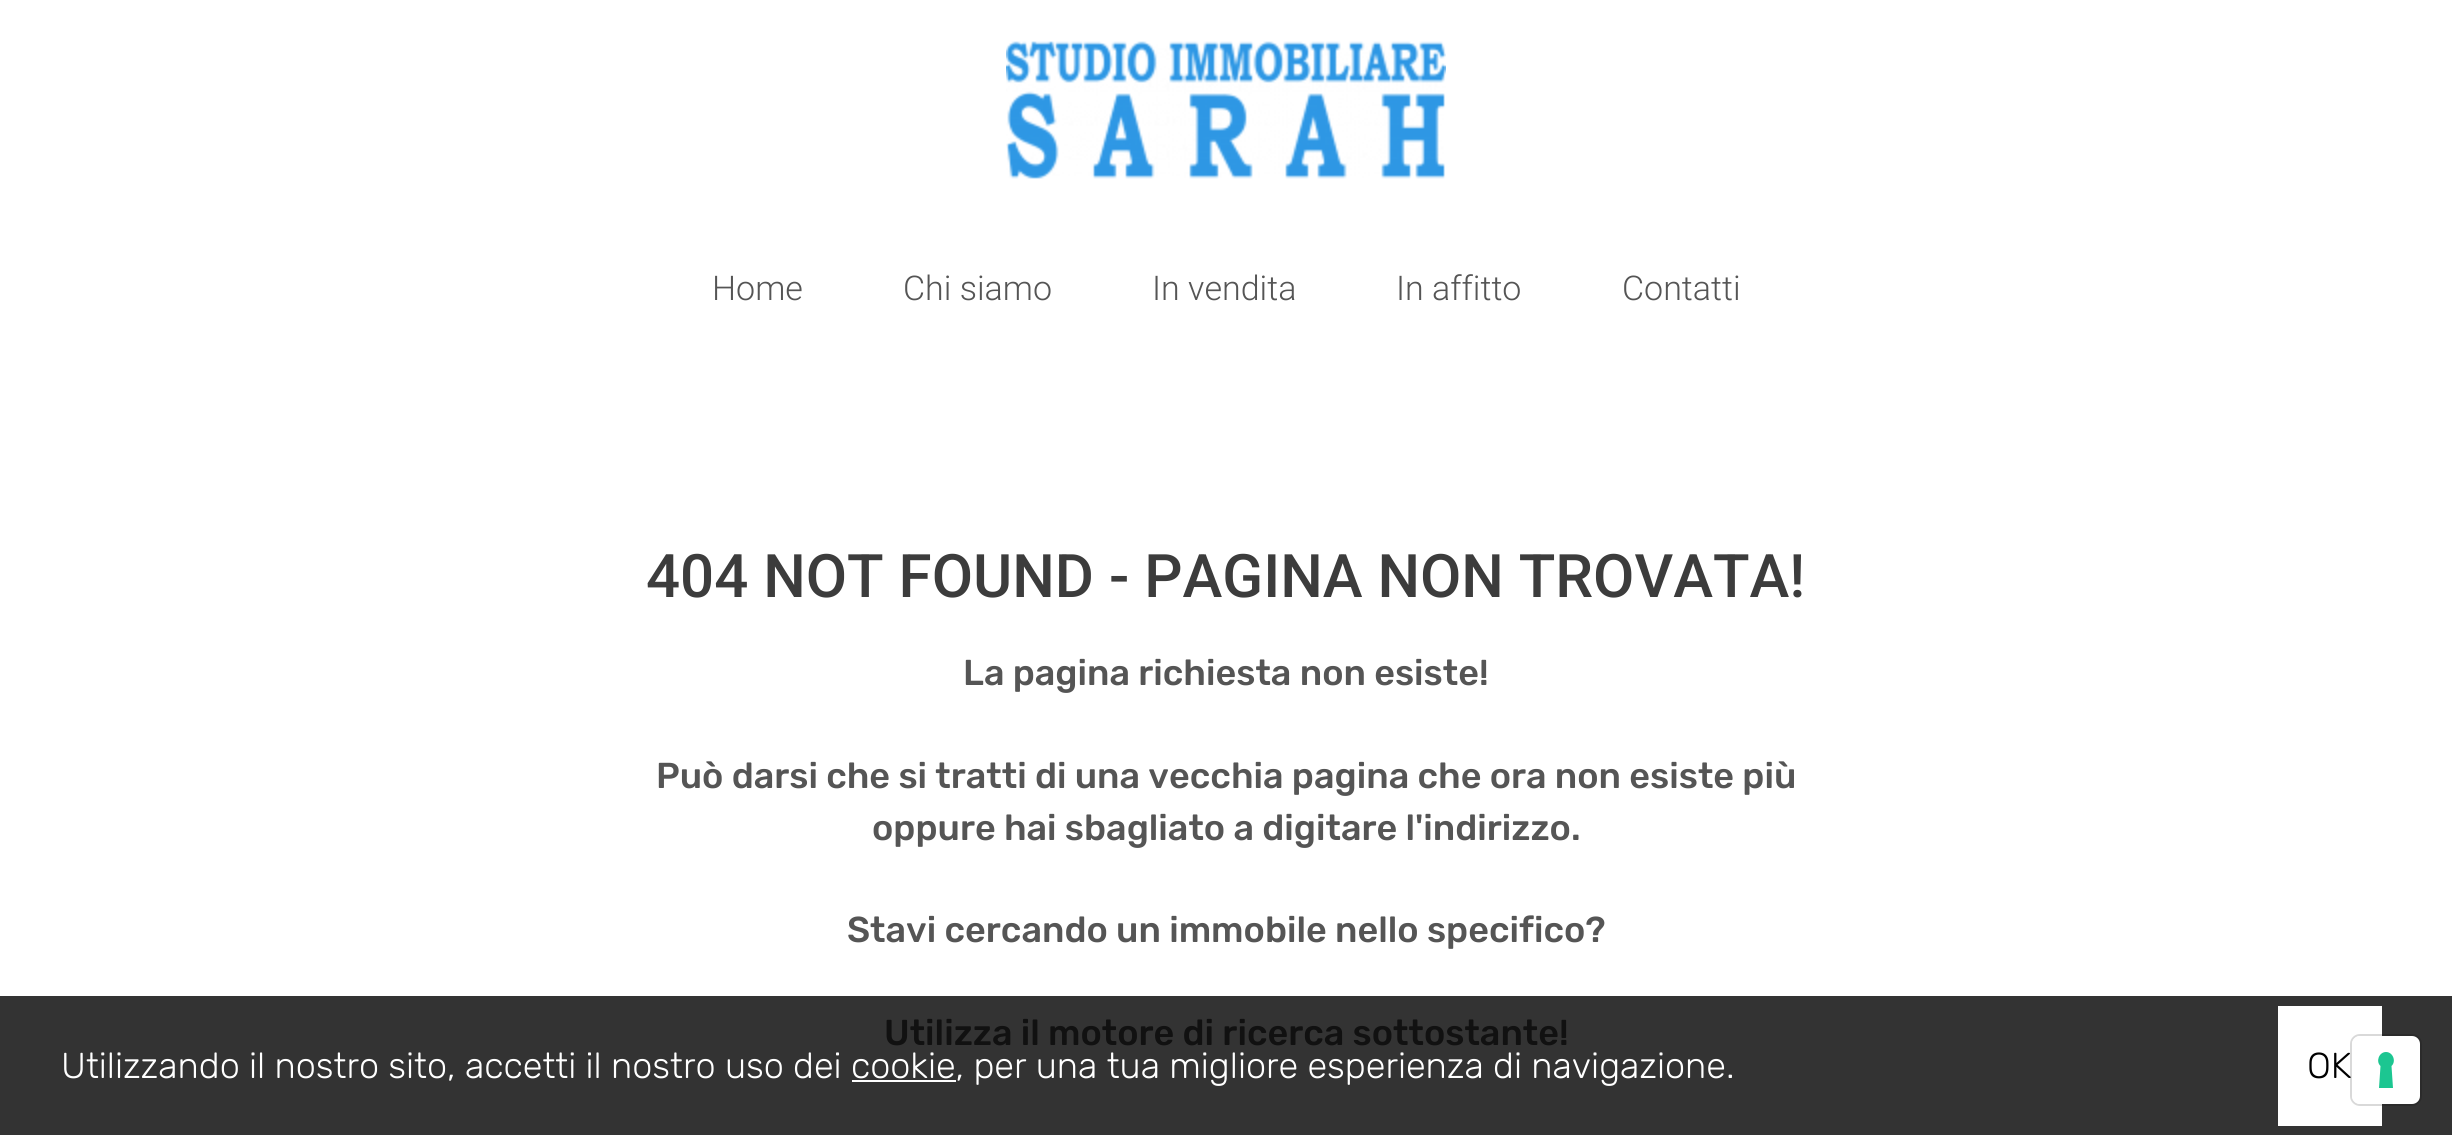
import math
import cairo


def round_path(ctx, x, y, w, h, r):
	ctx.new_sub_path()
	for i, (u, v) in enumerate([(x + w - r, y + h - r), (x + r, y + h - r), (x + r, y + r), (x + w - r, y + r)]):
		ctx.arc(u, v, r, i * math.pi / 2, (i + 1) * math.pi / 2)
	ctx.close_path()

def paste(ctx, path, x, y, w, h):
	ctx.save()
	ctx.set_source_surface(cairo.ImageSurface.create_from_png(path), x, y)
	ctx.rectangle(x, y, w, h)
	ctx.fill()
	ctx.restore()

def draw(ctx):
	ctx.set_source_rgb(1, 1, 1)
	ctx.paint()
	ctx.set_source_rgb(0.2, 0.2, 0.2)
	ctx.rectangle(0, 996, 2452, 139)
	ctx.fill()
	paste(ctx, 'media/1.png', 1006, 41, 440, 138)
	ctx.select_font_face('Roboto Light')
	ctx.set_font_size(34)
	ctx.set_source_rgb(0.333, 0.333, 0.333)
	for x, y, s in [
		(712, 300, 'Home'),
		(903, 300, 'Chi siamo'),
		(1152, 300, 'In vendita'),
		(1396, 300, 'In affitto'),
		(1622, 300, 'Contatti'),
	]:
		ctx.move_to(x, y)
		ctx.show_text(s)
	ctx.select_font_face('Roboto Medium')
	ctx.set_font_size(60)
	ctx.set_source_rgb(0.235, 0.235, 0.235)
	ctx.move_to(646, 597)
	ctx.show_text('404 NOT FOUND - PAGINA NON TROVATA!')
	ctx.select_font_face('Rubik Medium')
	ctx.set_font_size(36)
	ctx.set_source_rgb(0.333, 0.333, 0.333)
	for x, y, s in [
		(963, 685, 'La pagina richiesta non esiste!'),
		(656, 788, 'Può darsi che si tratti di una vecchia pagina che ora non esiste più'),
		(872, 840, 'oppure hai sbagliato a digitare l\'indirizzo.'),
		(847, 942, 'Stavi cercando un immobile nello specifico?'),
	]:
		ctx.move_to(x, y)
		ctx.show_text(s)
	ctx.set_source_rgb(0.067, 0.067, 0.067)
	ctx.move_to(884, 1045)
	ctx.show_text('Utilizza il motore di ricerca sottostante!')
	ctx.select_font_face('Rubik Light')
	ctx.set_source_rgb(1, 1, 1)
	ctx.move_to(61, 1078)
	ctx.show_text('Utilizzando il nostro sito, accetti il nostro uso dei cookie, per una tua migliore esperienza di navigazione.')
	ctx.rectangle(2278, 1006, 104, 120)
	ctx.fill()
	ctx.set_source_rgb(0, 0, 0)
	ctx.move_to(2307, 1078)
	ctx.show_text('OK')
	ctx.set_source_rgb(1, 1, 1)
	ctx.rectangle(852, 1080, 104, 2)
	ctx.fill()
	round_path(ctx, 2351, 1035, 70, 70, 9)
	ctx.set_source_rgba(0, 0, 0, 0.15)
	ctx.stroke()
	ctx.set_source_rgb(1, 1, 1)
	round_path(ctx, 2352, 1036, 68, 68, 8)
	ctx.fill()
	ctx.set_source_rgb(0.11, 0.776, 0.569)
	ctx.set_fill_rule(cairo.FILL_RULE_EVEN_ODD)
	ctx.new_path()
	ctx.move_to(2386, 1052)
	ctx.curve_to(2393, 1052, 2396.5, 1061.5, 2391.5, 1066)
	ctx.line_to(2393, 1088)
	ctx.line_to(2379, 1088)
	ctx.line_to(2380.5, 1066)
	ctx.curve_to(2375.5, 1061.5, 2379, 1052, 2386, 1052)
	ctx.close_path()
	ctx.fill()


surface = cairo.ImageSurface(cairo.FORMAT_RGB24, 2452, 1135)
ctx = cairo.Context(surface)
options = cairo.FontOptions()
options.set_hint_metrics(cairo.HINT_METRICS_OFF)
options.set_hint_style(cairo.HINT_STYLE_NONE)
ctx.set_font_options(options)
ctx.set_miter_limit(4)
draw(ctx)
surface.write_to_png('image.png')
